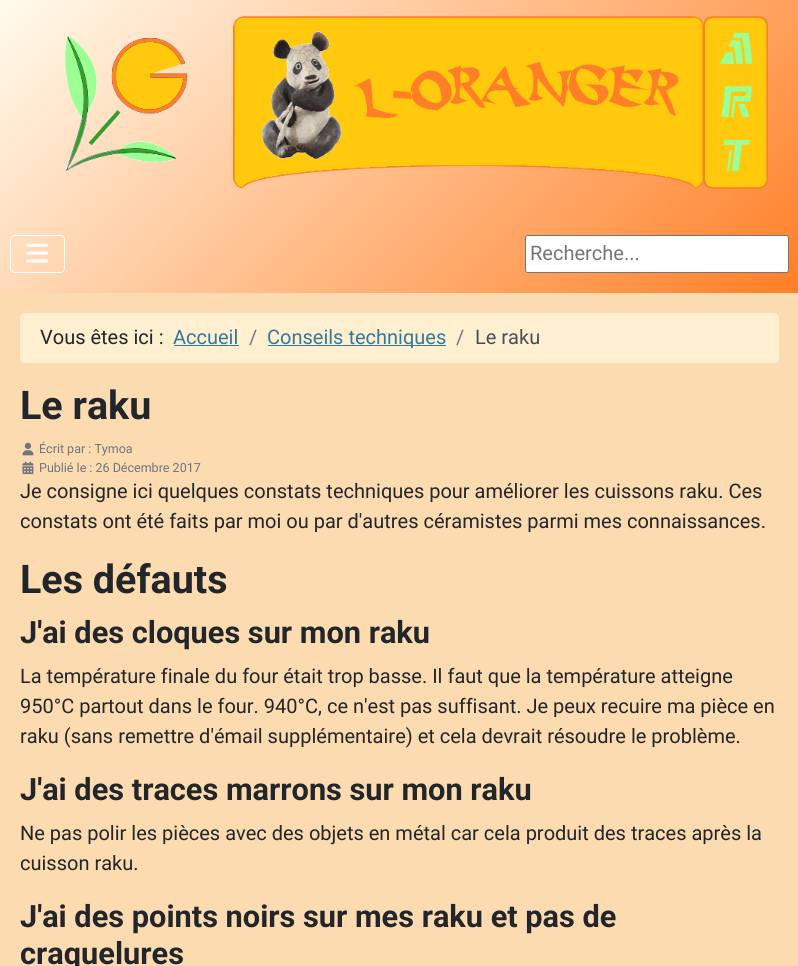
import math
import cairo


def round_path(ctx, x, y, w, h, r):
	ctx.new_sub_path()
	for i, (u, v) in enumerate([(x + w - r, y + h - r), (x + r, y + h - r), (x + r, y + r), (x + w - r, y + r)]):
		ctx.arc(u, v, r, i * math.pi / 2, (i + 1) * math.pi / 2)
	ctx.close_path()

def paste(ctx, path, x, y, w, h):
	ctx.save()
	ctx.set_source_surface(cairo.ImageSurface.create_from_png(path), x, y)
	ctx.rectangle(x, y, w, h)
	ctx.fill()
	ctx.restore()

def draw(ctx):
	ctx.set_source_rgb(0.988, 0.859, 0.69)
	ctx.paint()
	gradient = cairo.LinearGradient(127, -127, 672, 419)
	gradient.add_color_stop_rgba(0, 1, 0.984, 0.929, 1)
	gradient.add_color_stop_rgba(1, 1, 0.498, 0.153, 1)
	ctx.set_source(gradient)
	ctx.rectangle(0, 0, 798, 293)
	ctx.fill()
	paste(ctx, 'media/1.png', 65, 16, 703, 173)
	round_path(ctx, 10.5, 235.5, 54, 37, 4.5)
	ctx.set_source_rgb(1, 1, 1)
	ctx.set_line_width(1)
	ctx.stroke()
	paste(ctx, 'media/2.png', 26, 243, 23, 20)
	round_path(ctx, 525.5, 235.5, 263, 37, 2)
	ctx.fill_preserve()
	ctx.set_source_rgb(0.463, 0.463, 0.463)
	ctx.stroke()
	ctx.select_font_face('Roboto')
	ctx.set_font_size(20)
	ctx.set_source_rgb(0.459, 0.459, 0.459)
	ctx.move_to(530, 260)
	ctx.show_text('Recherche...')
	ctx.set_source_rgb(1, 0.937, 0.82)
	round_path(ctx, 20, 313, 759, 50, 5)
	ctx.fill()
	ctx.set_source_rgb(0.133, 0.149, 0.165)
	ctx.move_to(40, 344)
	ctx.show_text('Vous êtes ici :')
	ctx.set_source_rgb(0.192, 0.478, 0.62)
	ctx.move_to(173, 344)
	ctx.show_text('Accueil')
	ctx.rectangle(174, 345, 65, 1)
	ctx.fill()
	ctx.set_source_rgb(0.427, 0.459, 0.494)
	ctx.move_to(249, 344)
	ctx.show_text('/')
	ctx.set_source_rgb(0.192, 0.478, 0.62)
	ctx.rectangle(268, 345, 178, 1)
	ctx.fill()
	ctx.move_to(267, 344)
	ctx.show_text('Conseils techniques')
	ctx.set_source_rgb(0.427, 0.459, 0.494)
	ctx.move_to(456, 344)
	ctx.show_text('/')
	ctx.set_source_rgb(0.282, 0.31, 0.337)
	ctx.move_to(475, 344)
	ctx.show_text('Le raku')
	ctx.select_font_face('Roboto', cairo.FONT_SLANT_NORMAL, cairo.FONT_WEIGHT_BOLD)
	ctx.set_font_size(39.5)
	ctx.set_source_rgb(0.133, 0.149, 0.165)
	ctx.move_to(20, 419)
	ctx.show_text('Le raku')
	paste(ctx, 'media/3.png', 22, 442, 12, 14)
	ctx.select_font_face('Roboto')
	ctx.set_font_size(12.5)
	ctx.set_source_rgb(0.427, 0.459, 0.494)
	ctx.move_to(39, 453)
	ctx.show_text('Écrit par : Tymoa')
	paste(ctx, 'media/4.png', 22, 461, 12, 14)
	ctx.move_to(39, 472)
	ctx.show_text('Publié le : 26 Décembre 2017')
	ctx.set_font_size(20)
	ctx.set_source_rgb(0.133, 0.149, 0.165)
	ctx.move_to(20, 498)
	ctx.show_text('Je consigne ici quelques constats techniques pour améliorer les cuissons raku. Ces')
	ctx.move_to(20, 528)
	ctx.show_text('constats ont été faits par moi ou par d\'autres céramistes parmi mes connaissances.')
	ctx.select_font_face('Roboto', cairo.FONT_SLANT_NORMAL, cairo.FONT_WEIGHT_BOLD)
	ctx.set_font_size(39.5)
	ctx.move_to(20, 593)
	ctx.show_text('Les défauts')
	ctx.set_font_size(30.75)
	ctx.move_to(20, 643)
	ctx.show_text('J\'ai des cloques sur mon raku')
	ctx.select_font_face('Roboto')
	ctx.set_font_size(20)
	for x, y, s in [
		(20, 683, 'La température finale du four était trop basse. Il faut que la température atteigne'),
		(20, 713, '950°C partout dans le four. 940°C, ce n\'est pas suffisant. Je peux recuire ma pièce en'),
		(20, 743, 'raku (sans remettre d\'émail supplémentaire) et cela devrait résoudre le problème.'),
	]:
		ctx.move_to(x, y)
		ctx.show_text(s)
	ctx.select_font_face('Roboto', cairo.FONT_SLANT_NORMAL, cairo.FONT_WEIGHT_BOLD)
	ctx.set_font_size(30.75)
	ctx.move_to(20, 800)
	ctx.show_text('J\'ai des traces marrons sur mon raku')
	ctx.select_font_face('Roboto')
	ctx.set_font_size(20)
	ctx.move_to(20, 840)
	ctx.show_text('Ne pas polir les pièces avec des objets en métal car cela produit des traces après la')
	ctx.move_to(20, 870)
	ctx.show_text('cuisson raku.')
	ctx.select_font_face('Roboto', cairo.FONT_SLANT_NORMAL, cairo.FONT_WEIGHT_BOLD)
	ctx.set_font_size(30.75)
	ctx.move_to(20, 927)
	ctx.show_text('J\'ai des points noirs sur mes raku et pas de')
	ctx.move_to(20, 964)
	ctx.show_text('craquelures')


surface = cairo.ImageSurface(cairo.FORMAT_RGB24, 798, 966)
ctx = cairo.Context(surface)
options = cairo.FontOptions()
options.set_hint_metrics(cairo.HINT_METRICS_OFF)
options.set_hint_style(cairo.HINT_STYLE_NONE)
ctx.set_font_options(options)
ctx.set_miter_limit(4)
draw(ctx)
surface.write_to_png('image.png')
